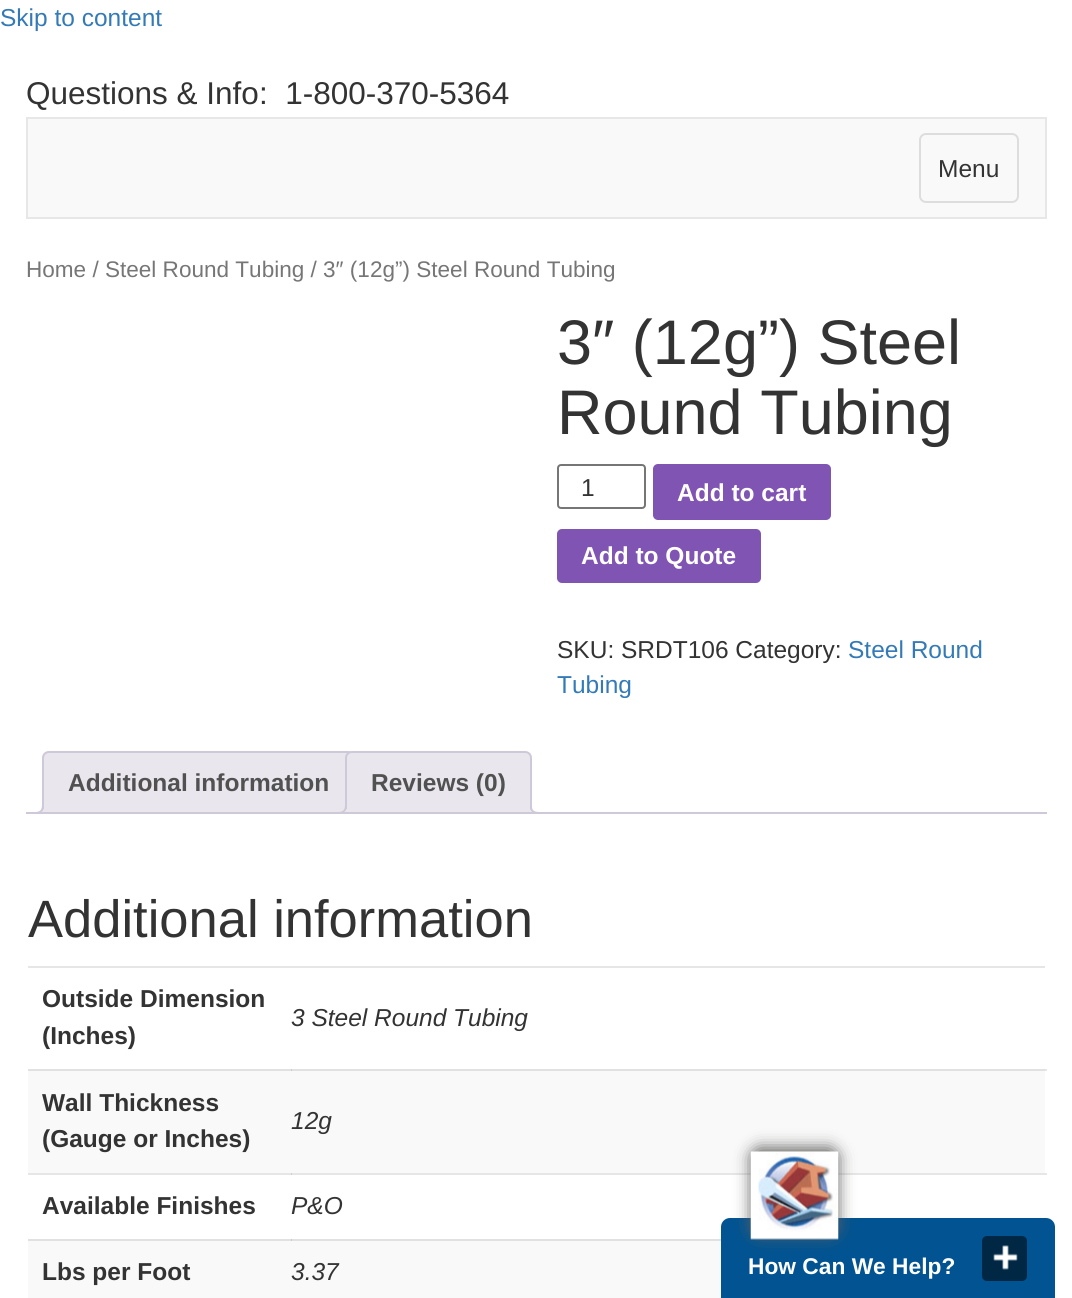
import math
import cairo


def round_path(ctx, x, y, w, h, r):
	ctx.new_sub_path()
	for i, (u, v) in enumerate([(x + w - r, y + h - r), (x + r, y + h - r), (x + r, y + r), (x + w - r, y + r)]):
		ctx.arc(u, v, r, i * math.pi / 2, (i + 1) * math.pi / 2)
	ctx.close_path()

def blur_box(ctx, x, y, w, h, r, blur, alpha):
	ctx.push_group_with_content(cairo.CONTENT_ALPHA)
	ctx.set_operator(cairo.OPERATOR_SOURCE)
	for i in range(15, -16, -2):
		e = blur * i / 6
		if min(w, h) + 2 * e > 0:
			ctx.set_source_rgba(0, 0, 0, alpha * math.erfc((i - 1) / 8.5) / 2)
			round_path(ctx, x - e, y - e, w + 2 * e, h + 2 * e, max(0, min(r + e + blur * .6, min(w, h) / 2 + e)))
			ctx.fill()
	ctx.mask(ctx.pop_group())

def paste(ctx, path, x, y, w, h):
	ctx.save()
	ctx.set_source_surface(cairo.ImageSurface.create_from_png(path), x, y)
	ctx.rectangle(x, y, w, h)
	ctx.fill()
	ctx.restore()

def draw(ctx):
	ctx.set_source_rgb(1, 1, 1)
	ctx.paint()
	ctx.select_font_face('Liberation Sans')
	ctx.set_font_size(24.5)
	ctx.set_source_rgb(0.2, 0.478, 0.718)
	ctx.move_to(0, 26)
	ctx.show_text('Skip to content')
	ctx.set_font_size(31.5)
	ctx.set_source_rgb(0.2, 0.2, 0.2)
	ctx.move_to(26, 104)
	ctx.show_text('Questions & Info:  1-800-370-5364')
	ctx.set_source_rgb(0.973, 0.973, 0.973)
	ctx.rectangle(27, 118, 1019, 100)
	ctx.fill_preserve()
	ctx.set_source_rgb(0.906, 0.906, 0.906)
	ctx.stroke()
	round_path(ctx, 920, 134, 98, 68, 6)
	ctx.set_source_rgb(0.867, 0.867, 0.867)
	ctx.stroke()
	ctx.set_font_size(24.5)
	ctx.set_source_rgb(0.2, 0.2, 0.2)
	ctx.move_to(938, 177)
	ctx.show_text('Menu')
	ctx.set_font_size(22.55)
	ctx.set_source_rgb(0.463, 0.463, 0.463)
	ctx.move_to(26, 277)
	ctx.show_text('Home / Steel Round Tubing / 3″ (12g”) Steel Round Tubing')
	ctx.set_font_size(63)
	ctx.set_source_rgb(0.2, 0.2, 0.2)
	ctx.move_to(557, 364)
	ctx.show_text('3″ (12g”) Steel')
	ctx.move_to(557, 434)
	ctx.show_text('Round Tubing')
	round_path(ctx, 558, 465, 87, 43, 3)
	ctx.set_source_rgb(0.463, 0.463, 0.463)
	ctx.stroke()
	ctx.set_font_size(24.5)
	ctx.set_source_rgb(0.2, 0.2, 0.2)
	ctx.move_to(581, 496)
	ctx.show_text('1')
	ctx.set_source_rgb(0.498, 0.329, 0.702)
	round_path(ctx, 653, 464, 178, 56, 5)
	ctx.fill()
	ctx.select_font_face('Liberation Sans', cairo.FONT_SLANT_NORMAL, cairo.FONT_WEIGHT_BOLD)
	ctx.set_source_rgb(1, 1, 1)
	ctx.move_to(677, 501)
	ctx.show_text('Add to cart')
	ctx.set_source_rgb(0.498, 0.329, 0.702)
	round_path(ctx, 557, 529, 204, 54, 5)
	ctx.fill()
	ctx.set_source_rgb(1, 1, 1)
	ctx.move_to(581, 564)
	ctx.show_text('Add to Quote')
	ctx.select_font_face('Liberation Sans')
	ctx.set_source_rgb(0.2, 0.2, 0.2)
	ctx.move_to(557, 658)
	ctx.show_text('SKU: SRDT106 Category:')
	ctx.set_source_rgb(0.2, 0.478, 0.718)
	ctx.move_to(848, 658)
	ctx.show_text('Steel Round')
	ctx.move_to(557, 693)
	ctx.show_text('Tubing')
	ctx.set_source_rgb(0.914, 0.902, 0.929)
	ctx.new_path()
	ctx.move_to(49, 752)
	ctx.line_to(348, 752)
	ctx.curve_to(351.5, 752, 354, 754.5, 354, 758)
	ctx.line_to(354, 813)
	ctx.line_to(43, 813)
	ctx.line_to(43, 758)
	ctx.curve_to(43, 754.5, 45.5, 752, 49, 752)
	ctx.close_path()
	ctx.fill_preserve()
	ctx.set_source_rgb(0.812, 0.784, 0.847)
	ctx.stroke()
	ctx.select_font_face('Liberation Sans', cairo.FONT_SLANT_NORMAL, cairo.FONT_WEIGHT_BOLD)
	ctx.set_source_rgb(0.318, 0.318, 0.318)
	ctx.move_to(68, 791)
	ctx.show_text('Additional information')
	ctx.save()
	ctx.rectangle(26, 751, 1021, 63)
	ctx.clip()
	ctx.set_source_rgb(0.914, 0.902, 0.929)
	ctx.new_path()
	ctx.move_to(39, 813.5)
	ctx.line_to(39, 817)
	ctx.curve_to(44, 817, 47, 814, 47, 809)
	ctx.line_to(43.5, 809)
	ctx.curve_to(42.5, 811, 41, 812.5, 39, 813.5)
	ctx.close_path()
	ctx.fill()
	ctx.restore()
	ctx.set_source_rgb(0.812, 0.784, 0.847)
	ctx.set_fill_rule(cairo.FILL_RULE_EVEN_ODD)
	ctx.new_path()
	ctx.move_to(35, 805)
	ctx.line_to(44, 805)
	ctx.curve_to(44, 811, 41, 814, 35, 814)
	ctx.close_path()
	ctx.move_to(35, 805)
	ctx.line_to(42, 805)
	ctx.curve_to(42, 810, 40, 812, 35, 812)
	ctx.close_path()
	ctx.fill()
	ctx.set_source_rgb(0.914, 0.902, 0.929)
	ctx.new_path()
	ctx.move_to(352, 752)
	ctx.line_to(525, 752)
	ctx.curve_to(528.5, 752, 531, 754.5, 531, 758)
	ctx.line_to(531, 813)
	ctx.line_to(346, 813)
	ctx.line_to(346, 758)
	ctx.curve_to(346, 754.5, 348.5, 752, 352, 752)
	ctx.close_path()
	ctx.fill_preserve()
	ctx.set_source_rgb(0.812, 0.784, 0.847)
	ctx.stroke()
	ctx.set_source_rgb(0.318, 0.318, 0.318)
	ctx.move_to(371, 791)
	ctx.show_text('Reviews (0)')
	ctx.save()
	ctx.set_fill_rule(cairo.FILL_RULE_WINDING)
	ctx.rectangle(26, 751, 1021, 63)
	ctx.clip()
	ctx.set_source_rgb(0.914, 0.902, 0.929)
	ctx.new_path()
	ctx.move_to(341, 813.5)
	ctx.line_to(341, 817)
	ctx.curve_to(346.5, 817, 350, 815, 350, 809)
	ctx.line_to(346, 809)
	ctx.curve_to(345.5, 811.5, 343.5, 813, 341, 813.5)
	ctx.close_path()
	ctx.fill()
	ctx.restore()
	ctx.set_source_rgb(0.812, 0.784, 0.847)
	ctx.new_path()
	ctx.move_to(338, 805)
	ctx.line_to(346.5, 805)
	ctx.curve_to(346.5, 811, 344, 814, 338, 814)
	ctx.close_path()
	ctx.move_to(338, 805)
	ctx.line_to(345, 805)
	ctx.curve_to(345, 810, 343, 812, 338, 812)
	ctx.close_path()
	ctx.fill()
	ctx.save()
	ctx.set_fill_rule(cairo.FILL_RULE_WINDING)
	ctx.rectangle(26, 751, 1021, 63)
	ctx.clip()
	ctx.set_source_rgb(0.914, 0.902, 0.929)
	ctx.new_path()
	ctx.move_to(527, 809)
	ctx.curve_to(527, 815, 530.5, 817, 536, 817)
	ctx.line_to(536, 813.5)
	ctx.curve_to(533.5, 813, 531.5, 811.5, 530.5, 809)
	ctx.close_path()
	ctx.fill()
	ctx.restore()
	ctx.new_path()
	ctx.move_to(530, 805)
	ctx.line_to(539, 805)
	ctx.line_to(539, 814)
	ctx.curve_to(534.5, 814, 530, 812, 530, 807)
	ctx.close_path()
	ctx.move_to(532, 805)
	ctx.line_to(539, 805)
	ctx.line_to(539, 812)
	ctx.curve_to(535.5, 812, 532, 811, 532, 807)
	ctx.close_path()
	ctx.fill()
	ctx.rectangle(26, 812, 1021, 2)
	ctx.fill()
	ctx.set_source_rgb(0.902, 0.902, 0.902)
	ctx.rectangle(28, 1173, 1019, 2)
	ctx.fill()
	ctx.select_font_face('Liberation Sans')
	ctx.set_font_size(52.5)
	ctx.set_source_rgb(0.2, 0.2, 0.2)
	ctx.move_to(28, 937)
	ctx.show_text('Additional information')
	ctx.set_source_rgb(0.902, 0.902, 0.902)
	ctx.rectangle(28, 966, 1017, 2)
	ctx.fill()
	ctx.set_source_rgb(0.976, 0.976, 0.976)
	ctx.rectangle(28, 1069, 1017, 104)
	ctx.fill()
	ctx.set_source_rgba(0, 0, 0, 0.1)
	ctx.rectangle(291, 1069, 756, 2)
	ctx.fill()
	ctx.rectangle(28, 1069, 264, 2)
	ctx.fill()
	ctx.select_font_face('Liberation Sans', cairo.FONT_SLANT_NORMAL, cairo.FONT_WEIGHT_BOLD)
	ctx.set_font_size(24.5)
	ctx.set_source_rgb(0.2, 0.2, 0.2)
	ctx.move_to(42, 1007)
	ctx.show_text('Outside Dimension')
	ctx.move_to(42, 1044)
	ctx.show_text('(Inches)')
	ctx.select_font_face('Liberation Sans', cairo.FONT_SLANT_ITALIC)
	ctx.move_to(291, 1026)
	ctx.show_text('3 Steel Round Tubing')
	ctx.select_font_face('Liberation Sans', cairo.FONT_SLANT_NORMAL, cairo.FONT_WEIGHT_BOLD)
	ctx.move_to(42, 1111)
	ctx.show_text('Wall Thickness')
	ctx.move_to(42, 1147)
	ctx.show_text('(Gauge or Inches)')
	ctx.set_source_rgb(0.812, 0.812, 0.812)
	ctx.rectangle(291, 1173, 1, 2)
	ctx.fill()
	ctx.select_font_face('Liberation Sans', cairo.FONT_SLANT_ITALIC)
	ctx.set_source_rgb(0.2, 0.2, 0.2)
	ctx.move_to(291, 1129)
	ctx.show_text('12g')
	ctx.set_source_rgb(0.976, 0.976, 0.976)
	ctx.rectangle(28, 1239, 693, 59)
	ctx.fill()
	ctx.set_source_rgba(0, 0, 0, 0.1)
	ctx.rectangle(291, 1239, 430, 2)
	ctx.fill()
	ctx.rectangle(28, 1239, 264, 2)
	ctx.fill()
	ctx.select_font_face('Liberation Sans', cairo.FONT_SLANT_NORMAL, cairo.FONT_WEIGHT_BOLD)
	ctx.set_source_rgb(0.2, 0.2, 0.2)
	ctx.move_to(42, 1214)
	ctx.show_text('Available Finishes')
	ctx.select_font_face('Liberation Sans', cairo.FONT_SLANT_ITALIC)
	ctx.move_to(291, 1214)
	ctx.show_text('P&O')
	ctx.select_font_face('Liberation Sans', cairo.FONT_SLANT_NORMAL, cairo.FONT_WEIGHT_BOLD)
	ctx.move_to(42, 1280)
	ctx.show_text('Lbs per Foot')
	ctx.select_font_face('Liberation Sans', cairo.FONT_SLANT_ITALIC)
	ctx.move_to(291, 1280)
	ctx.show_text('3.37')
	ctx.set_source_rgb(0.004, 0.325, 0.569)
	ctx.new_path()
	ctx.move_to(730, 1218)
	ctx.line_to(1046, 1218)
	ctx.curve_to(1051, 1218, 1055, 1222, 1055, 1227)
	ctx.line_to(1055, 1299)
	ctx.line_to(721, 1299)
	ctx.line_to(721, 1227)
	ctx.curve_to(721, 1222, 725, 1218, 730, 1218)
	ctx.close_path()
	ctx.fill()
	ctx.set_source_rgb(0.373, 0.373, 0.369)
	blur_box(ctx, 751, 1148, 87, 88, 9, 8, 1)
	paste(ctx, 'media/1.png', 750, 1151, 89, 89)
	ctx.set_source_rgb(0, 0.157, 0.271)
	round_path(ctx, 982, 1236, 45, 45, 5)
	ctx.fill()
	paste(ctx, 'media/2.png', 993, 1245, 25, 25)
	ctx.select_font_face('Liberation Sans', cairo.FONT_SLANT_NORMAL, cairo.FONT_WEIGHT_BOLD)
	ctx.set_font_size(22.75)
	ctx.set_source_rgb(1, 1, 1)
	ctx.move_to(748, 1274)
	ctx.show_text('How Can We Help?')


surface = cairo.ImageSurface(cairo.FORMAT_RGB24, 1072, 1298)
ctx = cairo.Context(surface)
options = cairo.FontOptions()
options.set_hint_metrics(cairo.HINT_METRICS_OFF)
options.set_hint_style(cairo.HINT_STYLE_NONE)
ctx.set_font_options(options)
ctx.set_miter_limit(4)
draw(ctx)
surface.write_to_png('image.png')
